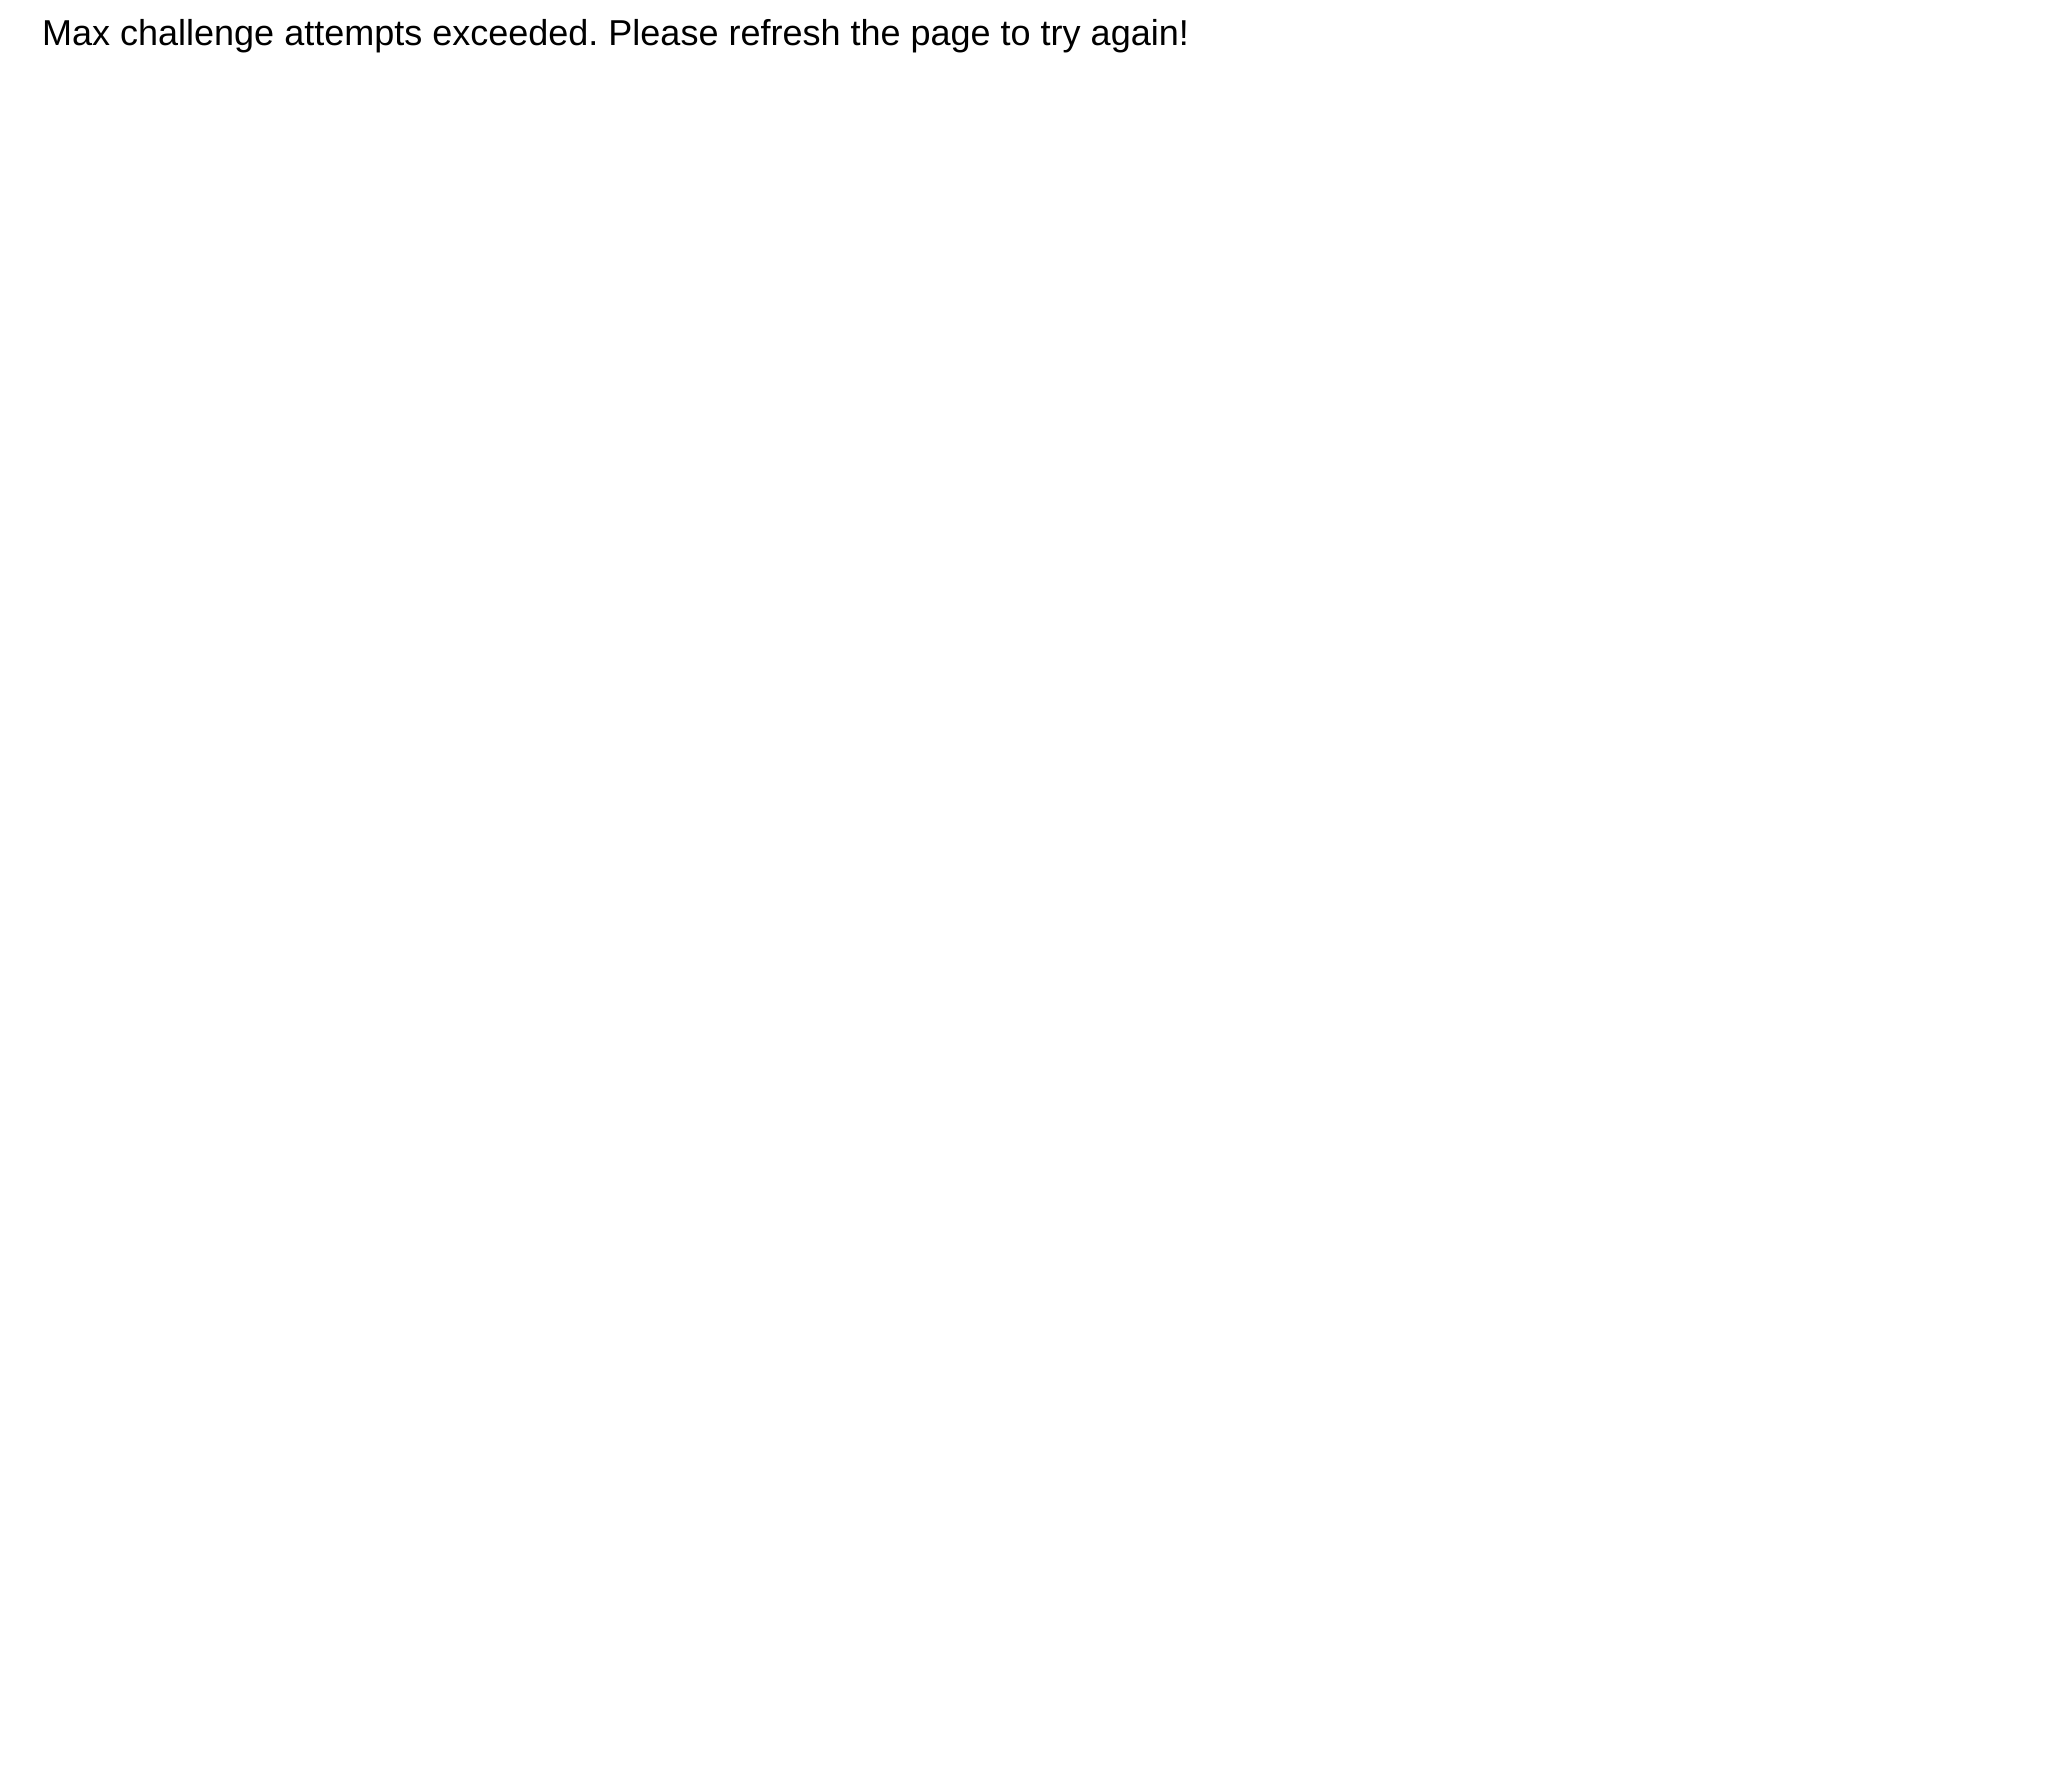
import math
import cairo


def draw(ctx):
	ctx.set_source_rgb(1, 1, 1)
	ctx.paint()
	ctx.select_font_face('Liberation Sans')
	ctx.set_font_size(36)
	ctx.set_source_rgb(0, 0, 0)
	ctx.move_to(42, 45)
	ctx.show_text('Max challenge attempts exceeded. Please refresh the page to try again!')


surface = cairo.ImageSurface(cairo.FORMAT_RGB24, 2069, 1766)
ctx = cairo.Context(surface)
options = cairo.FontOptions()
options.set_hint_metrics(cairo.HINT_METRICS_OFF)
options.set_hint_style(cairo.HINT_STYLE_NONE)
ctx.set_font_options(options)
ctx.set_miter_limit(4)
draw(ctx)
surface.write_to_png('image.png')
